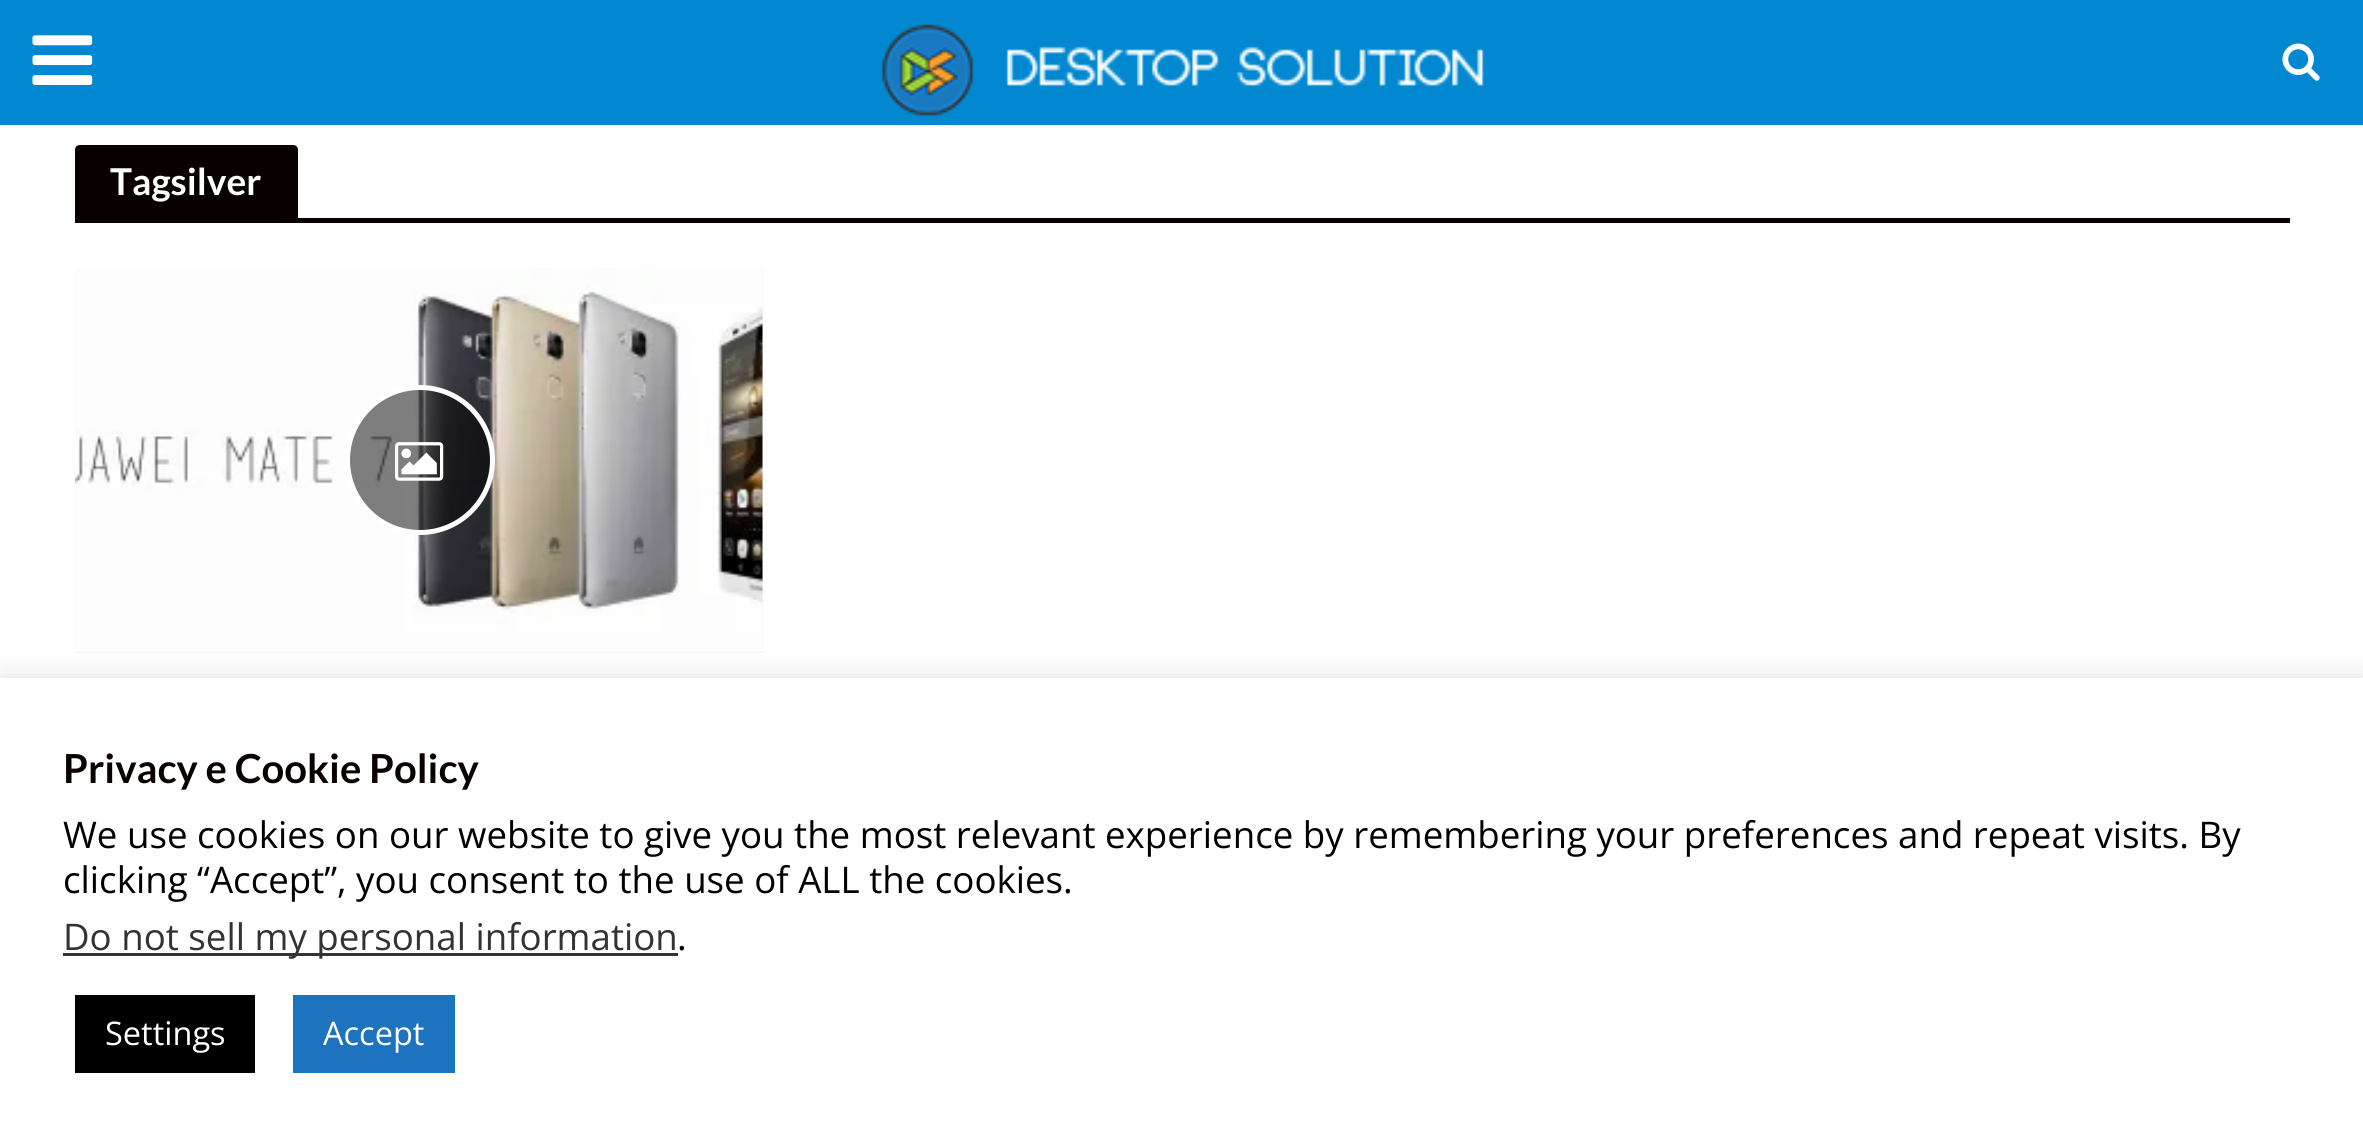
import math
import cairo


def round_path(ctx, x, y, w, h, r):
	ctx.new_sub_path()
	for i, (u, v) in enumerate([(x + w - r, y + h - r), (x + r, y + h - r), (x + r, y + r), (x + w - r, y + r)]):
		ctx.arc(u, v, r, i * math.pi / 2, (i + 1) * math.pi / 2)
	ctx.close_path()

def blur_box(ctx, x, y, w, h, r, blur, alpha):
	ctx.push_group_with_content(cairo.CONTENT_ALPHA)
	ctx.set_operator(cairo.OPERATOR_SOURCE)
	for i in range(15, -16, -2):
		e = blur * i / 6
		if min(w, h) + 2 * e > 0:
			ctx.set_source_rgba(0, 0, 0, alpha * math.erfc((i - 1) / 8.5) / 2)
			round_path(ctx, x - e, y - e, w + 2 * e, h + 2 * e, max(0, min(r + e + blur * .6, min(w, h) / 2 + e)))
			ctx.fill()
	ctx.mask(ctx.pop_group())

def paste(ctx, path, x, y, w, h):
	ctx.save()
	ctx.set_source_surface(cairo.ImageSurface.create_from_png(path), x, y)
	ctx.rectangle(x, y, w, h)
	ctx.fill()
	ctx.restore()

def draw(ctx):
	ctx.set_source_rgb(1, 1, 1)
	ctx.paint()
	ctx.set_source_rgb(0.008, 0.533, 0.82)
	ctx.rectangle(0, 0, 2363, 125)
	ctx.fill()
	paste(ctx, 'media/1.png', 32, 35, 61, 50)
	paste(ctx, 'media/2.png', 881, 24, 603, 92)
	paste(ctx, 'media/3.png', 2282, 43, 38, 38)
	ctx.set_source_rgb(0.039, 0, 0)
	ctx.new_path()
	ctx.move_to(80, 145)
	ctx.line_to(293, 145)
	ctx.curve_to(296, 145, 298, 147, 298, 150)
	ctx.line_to(298, 218)
	ctx.line_to(75, 218)
	ctx.line_to(75, 150)
	ctx.curve_to(75, 147, 77, 145, 80, 145)
	ctx.close_path()
	ctx.fill()
	ctx.select_font_face('Lato', cairo.FONT_SLANT_NORMAL, cairo.FONT_WEIGHT_BOLD)
	ctx.set_font_size(37)
	ctx.set_source_rgb(1, 1, 1)
	ctx.move_to(110, 195)
	ctx.show_text('Tagsilver')
	ctx.set_source_rgb(0.039, 0, 0)
	ctx.rectangle(75, 218, 2215, 5)
	ctx.fill()
	ctx.set_source_rgb(0.953, 0.953, 0.953)
	ctx.rectangle(75, 268, 688, 385)
	ctx.fill()
	paste(ctx, 'media/4.png', 75, 268, 688, 384)
	ctx.set_source_rgba(0, 0, 0, 0.5)
	ctx.arc(420, 460, 72.5, 0, 2 * math.pi)
	ctx.fill_preserve()
	ctx.set_source_rgb(1, 1, 1)
	ctx.set_line_width(5)
	ctx.stroke()
	paste(ctx, 'media/5.png', 395, 442, 49, 39)
	ctx.set_source_rgb(0.675, 0.671, 0.671)
	blur_box(ctx, 0, 675, 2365, 470, 0, 12.5, 0.3)
	ctx.set_source_rgb(1, 1, 1)
	ctx.rectangle(0, 678, 2363, 468)
	ctx.fill()
	ctx.set_font_size(40)
	ctx.set_source_rgb(0.039, 0, 0)
	ctx.move_to(63, 783)
	ctx.show_text('Privacy e Cookie Policy')
	ctx.select_font_face('Open Sans')
	ctx.set_font_size(36.67)
	ctx.set_source_rgb(0, 0, 0)
	ctx.move_to(63, 848)
	ctx.show_text('We use cookies on our website to give you the most relevant experience by remembering your preferences and repeat visits. By')
	ctx.move_to(63, 893)
	ctx.show_text('clicking “Accept”, you consent to the use of ALL the cookies.')
	ctx.set_source_rgb(0.2, 0.2, 0.2)
	ctx.rectangle(63, 953, 615, 3)
	ctx.fill()
	ctx.move_to(63, 950)
	ctx.show_text('Do not sell my personal information')
	ctx.set_source_rgb(0, 0, 0)
	ctx.move_to(677, 950)
	ctx.show_text('.')
	ctx.rectangle(75, 995, 180, 78)
	ctx.fill()
	ctx.set_font_size(32.5)
	ctx.set_source_rgb(1, 1, 1)
	ctx.move_to(105, 1045)
	ctx.show_text('Settings')
	ctx.set_source_rgb(0.118, 0.451, 0.745)
	ctx.rectangle(293, 995, 162, 78)
	ctx.fill()
	ctx.set_source_rgb(1, 1, 1)
	ctx.move_to(323, 1045)
	ctx.show_text('Accept')


surface = cairo.ImageSurface(cairo.FORMAT_RGB24, 2363, 1146)
ctx = cairo.Context(surface)
options = cairo.FontOptions()
options.set_hint_metrics(cairo.HINT_METRICS_OFF)
options.set_hint_style(cairo.HINT_STYLE_NONE)
ctx.set_font_options(options)
ctx.set_miter_limit(4)
draw(ctx)
surface.write_to_png('image.png')
